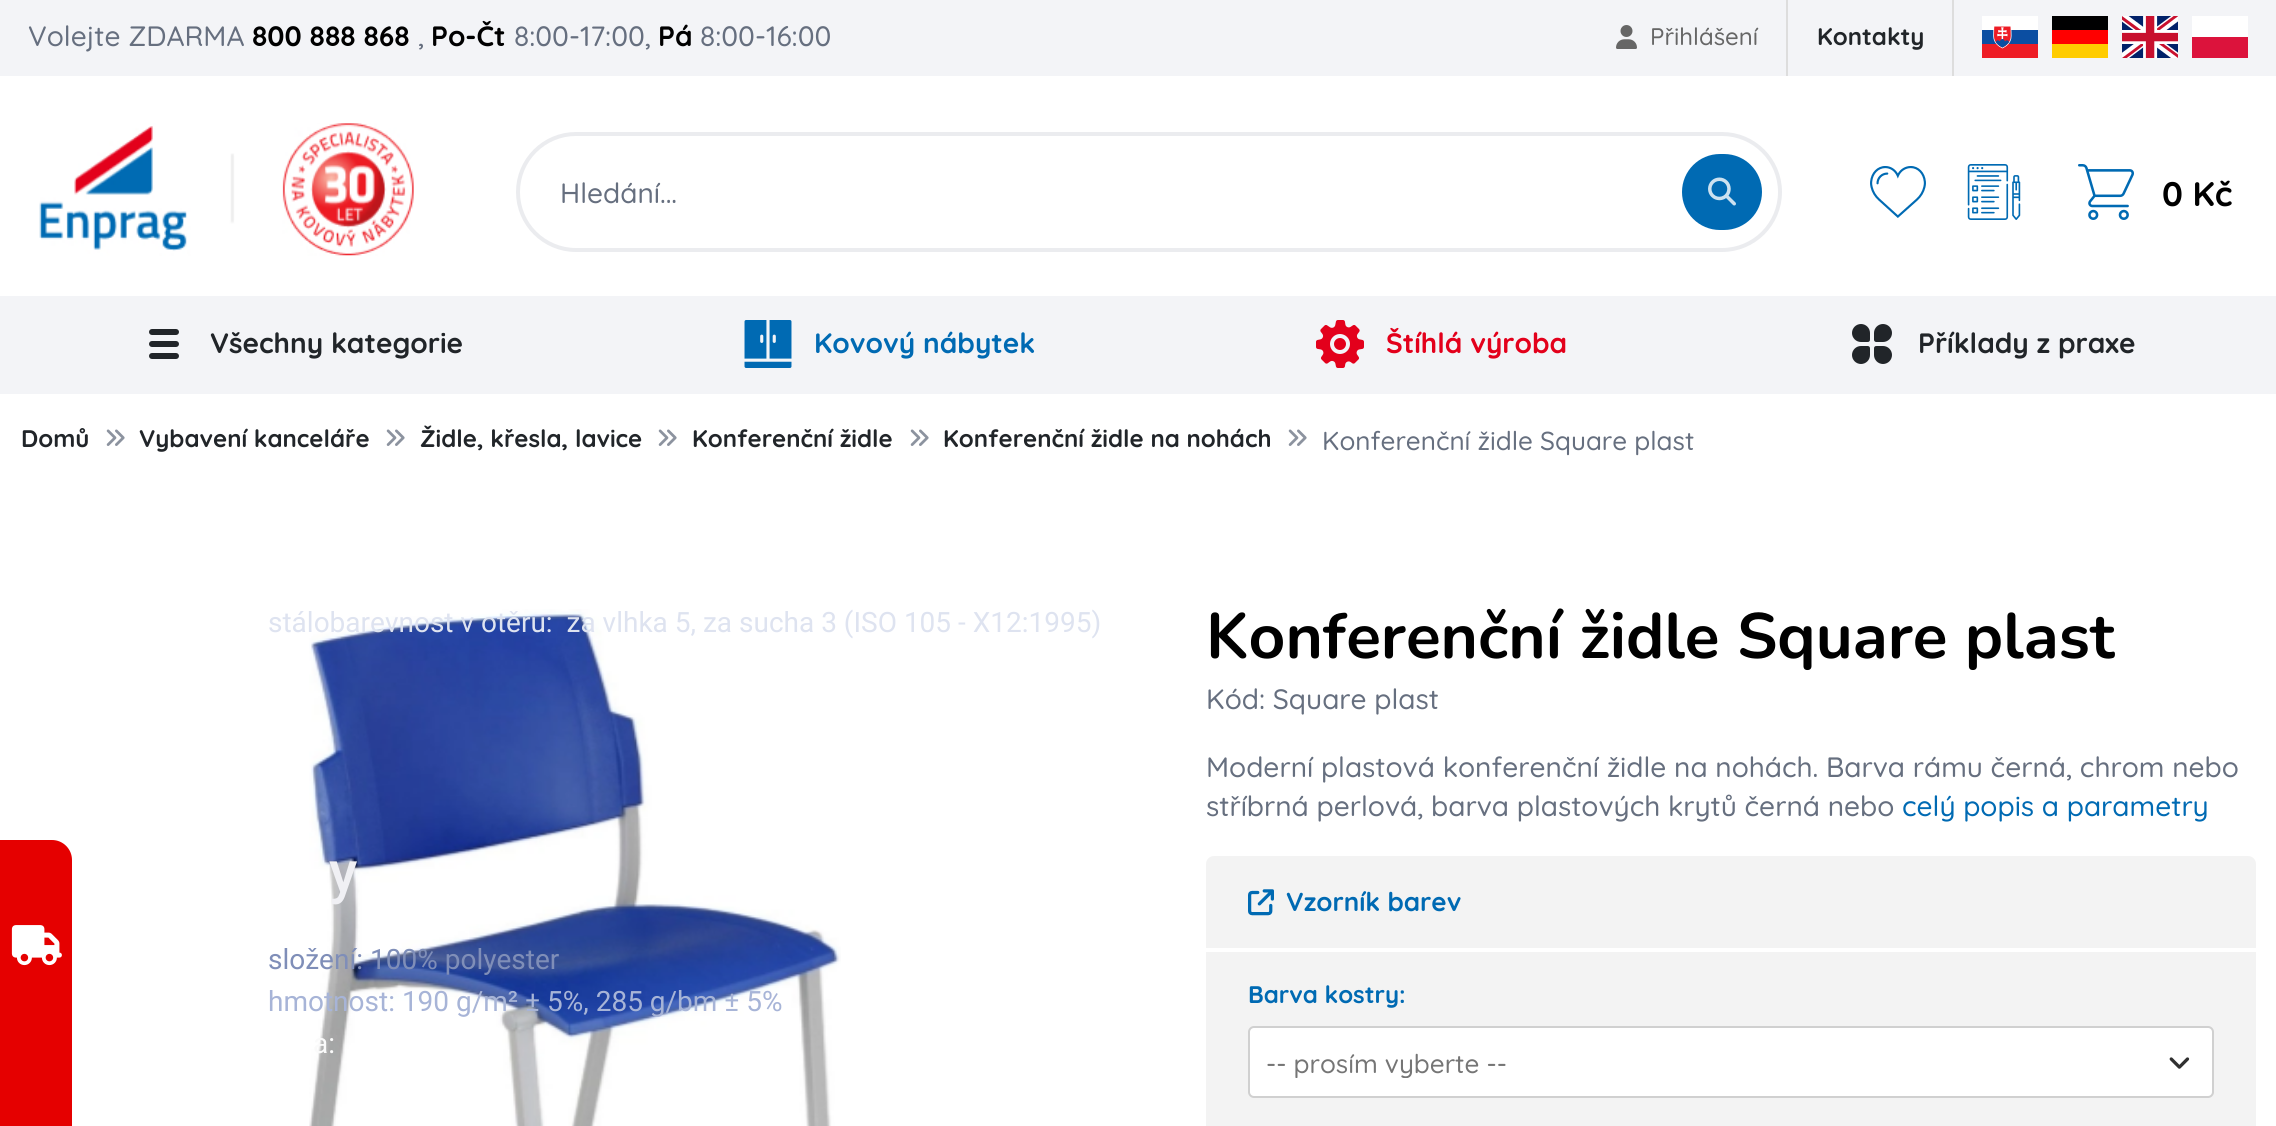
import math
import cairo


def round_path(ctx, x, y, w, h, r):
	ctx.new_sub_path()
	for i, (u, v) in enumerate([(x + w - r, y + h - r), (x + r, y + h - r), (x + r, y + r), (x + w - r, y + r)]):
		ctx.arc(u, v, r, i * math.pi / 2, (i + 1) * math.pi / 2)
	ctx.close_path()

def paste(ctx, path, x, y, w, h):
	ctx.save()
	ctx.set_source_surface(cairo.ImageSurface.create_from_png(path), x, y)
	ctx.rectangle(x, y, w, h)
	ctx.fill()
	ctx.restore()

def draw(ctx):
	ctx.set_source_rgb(1, 1, 1)
	ctx.paint()
	ctx.set_source_rgb(0.953, 0.957, 0.965)
	ctx.rectangle(0, 0, 2276, 76)
	ctx.fill()
	ctx.select_font_face('Quicksand Medium')
	ctx.set_font_size(28)
	ctx.set_source_rgb(0.4, 0.435, 0.498)
	ctx.move_to(28, 46)
	ctx.show_text('Volejte ZDARMA')
	ctx.select_font_face('Quicksand', cairo.FONT_SLANT_NORMAL, cairo.FONT_WEIGHT_BOLD)
	ctx.set_source_rgb(0, 0, 0)
	ctx.move_to(252, 46)
	ctx.show_text('800 888 868')
	ctx.select_font_face('Quicksand Medium')
	ctx.set_source_rgb(0.4, 0.435, 0.498)
	ctx.move_to(418, 46)
	ctx.show_text(',')
	ctx.select_font_face('Quicksand', cairo.FONT_SLANT_NORMAL, cairo.FONT_WEIGHT_BOLD)
	ctx.set_source_rgb(0, 0, 0)
	ctx.move_to(431, 46)
	ctx.show_text('Po-Čt')
	ctx.select_font_face('Quicksand Medium')
	ctx.set_source_rgb(0.4, 0.435, 0.498)
	ctx.move_to(514, 46)
	ctx.show_text('8:00-17:00,')
	ctx.select_font_face('Quicksand', cairo.FONT_SLANT_NORMAL, cairo.FONT_WEIGHT_BOLD)
	ctx.set_source_rgb(0, 0, 0)
	ctx.move_to(658, 46)
	ctx.show_text('Pá')
	ctx.select_font_face('Quicksand Medium')
	ctx.set_source_rgb(0.4, 0.435, 0.498)
	ctx.move_to(700, 46)
	ctx.show_text('8:00-16:00')
	ctx.set_source_rgb(0.867, 0.867, 0.867)
	ctx.rectangle(1786, 0, 2, 76)
	ctx.fill()
	paste(ctx, 'media/1.png', 1616, 25, 21, 24)
	ctx.set_font_size(24)
	ctx.set_source_rgb(0.4, 0.4, 0.4)
	ctx.move_to(1650, 45)
	ctx.show_text('Přihlášení')
	ctx.set_source_rgb(0.867, 0.867, 0.867)
	ctx.rectangle(1952, 0, 2, 76)
	ctx.fill()
	ctx.select_font_face('Quicksand', cairo.FONT_SLANT_NORMAL, cairo.FONT_WEIGHT_BOLD)
	ctx.set_source_rgb(0.129, 0.145, 0.161)
	ctx.move_to(1817, 45)
	ctx.show_text('Kontakty')
	paste(ctx, 'media/2.png', 1982, 16, 56, 42)
	ctx.set_source_rgb(1, 0.8, 0)
	ctx.rectangle(2052, 44, 56, 14)
	ctx.fill()
	ctx.set_source_rgb(0, 0, 0.004)
	ctx.rectangle(2052, 16, 56, 14)
	ctx.fill()
	ctx.set_source_rgb(1, 0, 0)
	ctx.rectangle(2052, 30, 56, 14)
	ctx.fill()
	paste(ctx, 'media/3.png', 2122, 16, 56, 42)
	ctx.set_source_rgb(1, 1, 1)
	ctx.rectangle(2192, 16, 56, 21)
	ctx.fill()
	ctx.set_source_rgb(0.863, 0.078, 0.235)
	ctx.rectangle(2192, 37, 56, 21)
	ctx.fill()
	paste(ctx, 'media/4.png', 39, 123, 375, 133)
	round_path(ctx, 518, 134, 1262, 116, 58)
	ctx.set_source_rgb(0.918, 0.925, 0.937)
	ctx.set_line_width(4)
	ctx.stroke()
	ctx.select_font_face('Quicksand Medium')
	ctx.set_font_size(28)
	ctx.set_source_rgb(0.4, 0.435, 0.498)
	ctx.move_to(560, 203)
	ctx.show_text('Hledání...')
	ctx.set_source_rgb(0, 0.416, 0.702)
	round_path(ctx, 1682, 154, 80, 76, 38)
	ctx.fill()
	paste(ctx, 'media/5.png', 1708, 177, 28, 29)
	paste(ctx, 'media/6.png', 1870, 166, 56, 52)
	paste(ctx, 'media/7.png', 1967, 164, 54, 56)
	paste(ctx, 'media/8.png', 2078, 164, 56, 56)
	ctx.select_font_face('Quicksand', cairo.FONT_SLANT_NORMAL, cairo.FONT_WEIGHT_BOLD)
	ctx.set_font_size(34)
	ctx.set_source_rgb(0, 0, 0)
	ctx.move_to(2162, 206)
	ctx.show_text('0 Kč')
	ctx.set_source_rgb(0.953, 0.957, 0.965)
	ctx.rectangle(0, 296, 2276, 98)
	ctx.fill()
	paste(ctx, 'media/9.png', 149, 329, 30, 30)
	ctx.set_font_size(28)
	ctx.set_source_rgb(0.129, 0.145, 0.161)
	ctx.move_to(210, 353)
	ctx.show_text('Všechny kategorie')
	paste(ctx, 'media/10.png', 744, 320, 48, 48)
	ctx.set_source_rgb(0, 0.416, 0.702)
	ctx.move_to(814, 353)
	ctx.show_text('Kovový nábytek')
	paste(ctx, 'media/11.png', 1316, 320, 48, 48)
	ctx.set_source_rgb(0.89, 0, 0.106)
	ctx.move_to(1386, 353)
	ctx.show_text('Štíhlá výroba')
	paste(ctx, 'media/12.png', 1852, 324, 40, 40)
	ctx.set_source_rgb(0.129, 0.145, 0.161)
	ctx.move_to(1918, 353)
	ctx.show_text('Příklady z praxe')
	ctx.set_font_size(24)
	ctx.move_to(21, 447)
	ctx.show_text('Domů')
	paste(ctx, 'media/13.png', 106, 429, 19, 17)
	ctx.move_to(139, 447)
	ctx.show_text('Vybavení kanceláře')
	paste(ctx, 'media/13.png', 386, 429, 19, 17)
	ctx.move_to(420, 447)
	ctx.show_text('Židle, křesla, lavice')
	paste(ctx, 'media/13.png', 658, 429, 19, 17)
	ctx.move_to(692, 447)
	ctx.show_text('Konferenční židle')
	paste(ctx, 'media/13.png', 910, 429, 19, 17)
	ctx.move_to(943, 447)
	ctx.show_text('Konferenční židle na nohách')
	paste(ctx, 'media/13.png', 1288, 429, 19, 17)
	ctx.select_font_face('Quicksand Medium')
	ctx.set_font_size(26)
	ctx.set_source_rgb(0.4, 0.435, 0.498)
	ctx.move_to(1322, 450)
	ctx.show_text('Konferenční židle Square plast')
	paste(ctx, 'media/14.png', 309, 609, 532, 517)
	ctx.select_font_face('Roboto')
	ctx.set_font_size(28)
	ctx.set_source_rgb(0.871, 0.89, 0.941)
	ctx.move_to(268, 632)
	ctx.show_text('stálobarevnost v otěru:  za vlhka 5, za sucha 3 (ISO 105 - X12:1995)')
	ctx.select_font_face('Roboto Medium')
	ctx.set_font_size(58)
	ctx.set_source_rgb(0.941, 0.941, 0.957)
	ctx.move_to(329, 892)
	ctx.show_text('y')
	ctx.select_font_face('Roboto')
	ctx.set_font_size(28)
	ctx.set_source_rgb(0.498, 0.557, 0.722)
	ctx.move_to(268, 969)
	ctx.show_text('složení: 100% polyester')
	ctx.set_source_rgb(0.655, 0.706, 0.843)
	ctx.move_to(268, 1011)
	ctx.show_text('hmotnost: 190 g/m² ± 5%, 285 g/bm ± 5%')
	ctx.set_source_rgb(0.98, 0.98, 0.98)
	ctx.move_to(313, 1053)
	ctx.show_text('a:')
	ctx.select_font_face('Nunito ExtraLight')
	ctx.set_font_size(64)
	ctx.set_source_rgb(0, 0, 0)
	ctx.move_to(1206, 658)
	ctx.show_text('Konferenční židle Square plast')
	ctx.select_font_face('Quicksand Medium')
	ctx.set_font_size(28)
	ctx.set_source_rgb(0.4, 0.435, 0.498)
	for x, y, s in [
		(1206, 709, 'Kód: Square plast'),
		(1206, 777, 'Moderní plastová konferenční židle na nohách. Barva rámu černá, chrom nebo'),
		(1206, 816, 'stříbrná perlová, barva plastových krytů černá nebo'),
	]:
		ctx.move_to(x, y)
		ctx.show_text(s)
	ctx.set_source_rgb(0, 0.416, 0.702)
	ctx.move_to(1902, 816)
	ctx.show_text('celý popis a parametry')
	ctx.set_source_rgb(0.953, 0.953, 0.953)
	round_path(ctx, 1206, 856, 1050, 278, 8)
	ctx.fill()
	paste(ctx, 'media/15.png', 1248, 889, 26, 27)
	ctx.select_font_face('Quicksand', cairo.FONT_SLANT_NORMAL, cairo.FONT_WEIGHT_BOLD)
	ctx.set_font_size(26)
	ctx.set_source_rgb(0, 0.416, 0.702)
	ctx.move_to(1286, 911)
	ctx.show_text('Vzorník barev')
	ctx.set_source_rgb(1, 1, 1)
	ctx.rectangle(1206, 948, 1050, 4)
	ctx.fill()
	ctx.set_font_size(24)
	ctx.set_source_rgb(0, 0.416, 0.702)
	ctx.move_to(1248, 1003)
	ctx.show_text('Barva kostry:')
	ctx.set_source_rgb(1, 1, 1)
	round_path(ctx, 1249, 1027, 964, 70, 5)
	ctx.fill_preserve()
	ctx.set_source_rgb(0.816, 0.816, 0.816)
	ctx.set_line_width(2)
	ctx.stroke()
	ctx.save()
	ctx.rectangle(1266, 1046, 902, 32)
	ctx.clip()
	ctx.select_font_face('Quicksand Medium')
	ctx.set_font_size(26)
	ctx.set_source_rgb(0.459, 0.459, 0.459)
	ctx.move_to(1266, 1073)
	ctx.show_text('-- prosím vyberte --')
	ctx.restore()
	paste(ctx, 'media/16.png', 2169, 1057, 21, 12)
	ctx.set_source_rgb(0.898, 0, 0)
	ctx.new_path()
	ctx.move_to(72, 860)
	ctx.line_to(72, 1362)
	ctx.curve_to(72, 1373, 63, 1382, 52, 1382)
	ctx.line_to(0, 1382)
	ctx.line_to(0, 840)
	ctx.line_to(52, 840)
	ctx.curve_to(63, 840, 72, 849, 72, 860)
	ctx.close_path()
	ctx.fill()
	paste(ctx, 'media/17.png', 11, 925, 51, 41)


surface = cairo.ImageSurface(cairo.FORMAT_RGB24, 2276, 1126)
ctx = cairo.Context(surface)
options = cairo.FontOptions()
options.set_hint_metrics(cairo.HINT_METRICS_OFF)
options.set_hint_style(cairo.HINT_STYLE_NONE)
ctx.set_font_options(options)
ctx.set_miter_limit(4)
draw(ctx)
surface.write_to_png('image.png')
